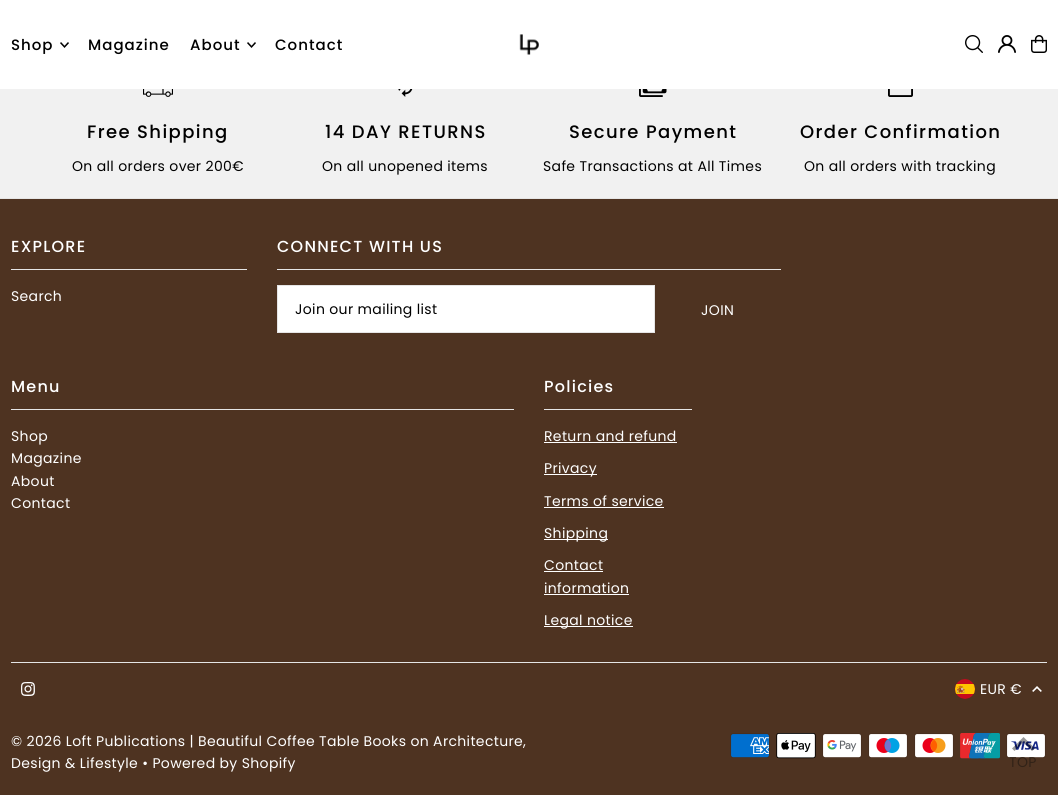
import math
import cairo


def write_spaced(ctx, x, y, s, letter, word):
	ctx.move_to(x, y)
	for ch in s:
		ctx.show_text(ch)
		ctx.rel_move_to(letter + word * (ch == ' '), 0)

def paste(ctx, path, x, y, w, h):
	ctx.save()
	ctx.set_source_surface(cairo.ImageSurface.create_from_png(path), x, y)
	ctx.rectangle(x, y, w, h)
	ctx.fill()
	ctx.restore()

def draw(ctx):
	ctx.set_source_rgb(0.945, 0.945, 0.945)
	ctx.paint()
	ctx.set_source_rgb(1, 1, 1)
	ctx.rectangle(0, 0, 1058, 89)
	ctx.fill()
	ctx.select_font_face('Poppins Medium')
	ctx.set_font_size(15)
	ctx.set_source_rgb(0, 0, 0)
	write_spaced(ctx, 11, 50, 'Shop', 1, 0)
	paste(ctx, 'media/1.png', 60, 42, 9, 6)
	write_spaced(ctx, 88, 50, 'Magazine', 1, 0)
	write_spaced(ctx, 190, 50, 'About', 1, 0)
	paste(ctx, 'media/1.png', 247, 42, 9, 6)
	write_spaced(ctx, 275, 50, 'Contact', 1, 0)
	paste(ctx, 'media/2.png', 519, 34, 20, 21)
	paste(ctx, 'media/3.png', 965, 35, 18, 18)
	paste(ctx, 'media/4.png', 998, 35, 18, 18)
	paste(ctx, 'media/5.png', 1031, 35, 16, 18)
	paste(ctx, 'media/6.png', 143, 89, 30, 8)
	ctx.set_font_size(18)
	write_spaced(ctx, 87, 138, 'Free Shipping', 1.4, 0)
	ctx.select_font_face('Poppins')
	ctx.set_font_size(14)
	write_spaced(ctx, 72, 171, 'On all orders over 200€', 0.35, 0)
	paste(ctx, 'media/7.png', 398, 89, 15, 8)
	ctx.select_font_face('Poppins Medium')
	ctx.set_font_size(18)
	write_spaced(ctx, 325, 138, '14 DAY RETURNS', 1.4, 0)
	ctx.select_font_face('Poppins')
	ctx.set_font_size(14)
	write_spaced(ctx, 322, 171, 'On all unopened items', 0.35, 0)
	paste(ctx, 'media/8.png', 639, 89, 28, 8)
	ctx.select_font_face('Poppins Medium')
	ctx.set_font_size(18)
	write_spaced(ctx, 569, 138, 'Secure Payment', 1.4, 0)
	ctx.select_font_face('Poppins')
	ctx.set_font_size(14)
	write_spaced(ctx, 543, 171, 'Safe Transactions at All Times', 0.35, 0)
	paste(ctx, 'media/9.png', 888, 89, 25, 8)
	ctx.select_font_face('Poppins Medium')
	ctx.set_font_size(18)
	write_spaced(ctx, 800, 138, 'Order Confirmation', 1.4, 0)
	ctx.select_font_face('Poppins')
	ctx.set_font_size(14)
	write_spaced(ctx, 804, 171, 'On all orders with tracking', 0.35, 0)
	ctx.set_source_rgb(0.306, 0.2, 0.129)
	ctx.rectangle(0, 199, 1058, 596)
	ctx.fill()
	ctx.set_source_rgb(0.898, 0.898, 0.898)
	ctx.rectangle(0, 198, 1058, 1)
	ctx.rectangle(11, 269, 236, 1)
	ctx.fill()
	ctx.select_font_face('Poppins Medium')
	ctx.set_font_size(16)
	ctx.set_source_rgb(1, 1, 1)
	write_spaced(ctx, 11, 252, 'EXPLORE', 1.25, 0)
	ctx.select_font_face('Poppins')
	ctx.set_font_size(14)
	write_spaced(ctx, 11, 301, 'Search', 0.35, 0)
	ctx.set_source_rgb(0.898, 0.898, 0.898)
	ctx.rectangle(277, 269, 504, 1)
	ctx.fill()
	ctx.select_font_face('Poppins Medium')
	ctx.set_font_size(16)
	ctx.set_source_rgb(1, 1, 1)
	write_spaced(ctx, 277, 252, 'CONNECT WITH US', 1.25, 0)
	ctx.rectangle(277.5, 285.5, 377, 47)
	ctx.fill_preserve()
	ctx.set_source_rgb(0.898, 0.898, 0.898)
	ctx.set_line_width(1)
	ctx.stroke()
	ctx.select_font_face('Poppins')
	ctx.set_font_size(14)
	ctx.set_source_rgb(0, 0, 0)
	write_spaced(ctx, 295, 314, 'Join our mailing list', 0.35, 0)
	ctx.set_source_rgb(1, 1, 1)
	write_spaced(ctx, 701, 315, 'JOIN', 0.35, 0)
	ctx.set_source_rgb(0.898, 0.898, 0.898)
	ctx.rectangle(11, 409, 503, 1)
	ctx.fill()
	ctx.select_font_face('Poppins Medium')
	ctx.set_font_size(16)
	ctx.set_source_rgb(1, 1, 1)
	write_spaced(ctx, 11, 392, 'Menu', 1.25, 0)
	ctx.select_font_face('Poppins')
	ctx.set_font_size(14)
	for x, y, s in [
		(11, 441, 'Shop'),
		(11, 463, 'Magazine'),
		(11, 486, 'About'),
		(11, 508, 'Contact'),
	]:
		write_spaced(ctx, x, y, s, 0.35, 0)
	ctx.set_source_rgb(0.898, 0.898, 0.898)
	ctx.rectangle(544, 409, 148, 1)
	ctx.fill()
	ctx.select_font_face('Poppins Medium')
	ctx.set_font_size(16)
	ctx.set_source_rgb(1, 1, 1)
	write_spaced(ctx, 544, 392, 'Policies', 1.25, 0)
	ctx.select_font_face('Poppins')
	ctx.set_font_size(14)
	write_spaced(ctx, 544, 441, 'Return and refund', 0.35, 0)
	ctx.rectangle(544, 442, 133, 1)
	ctx.fill()
	ctx.rectangle(544, 474, 53, 1)
	ctx.fill()
	write_spaced(ctx, 544, 473, 'Privacy', 0.35, 0)
	write_spaced(ctx, 544, 506, 'Terms of service', 0.35, 0)
	ctx.rectangle(544, 507, 120, 1)
	ctx.fill()
	ctx.rectangle(544, 539, 64, 1)
	ctx.fill()
	write_spaced(ctx, 544, 538, 'Shipping', 0.35, 0)
	write_spaced(ctx, 544, 570, 'Contact', 0.35, 0)
	ctx.rectangle(544, 571, 59, 1)
	ctx.fill()
	write_spaced(ctx, 544, 593, 'information', 0.35, 0)
	ctx.rectangle(544, 594, 85, 1)
	ctx.fill()
	ctx.rectangle(544, 626, 89, 1)
	ctx.fill()
	write_spaced(ctx, 544, 625, 'Legal notice', 0.35, 0)
	ctx.set_source_rgb(0.898, 0.898, 0.898)
	ctx.rectangle(11, 662, 1036, 1)
	ctx.fill()
	paste(ctx, 'media/10.png', 955, 679, 20, 20)
	ctx.set_source_rgb(1, 1, 1)
	write_spaced(ctx, 980, 694, 'EUR €', 0.35, 0)
	paste(ctx, 'media/11.png', 1032, 686, 10, 6)
	paste(ctx, 'media/12.png', 730, 733, 40, 25)
	paste(ctx, 'media/13.png', 776, 733, 40, 26)
	paste(ctx, 'media/14.png', 822, 733, 40, 25)
	paste(ctx, 'media/15.png', 868, 733, 40, 25)
	paste(ctx, 'media/16.png', 914, 733, 40, 25)
	paste(ctx, 'media/17.png', 960, 733, 40, 26)
	paste(ctx, 'media/18.png', 1006, 733, 40, 25)
	paste(ctx, 'media/19.png', 21, 682, 14, 14)
	write_spaced(ctx, 11, 746, '© 2026 Loft Publications | Beautiful Coffee Table Books on Architecture,', 0.35, 0)
	write_spaced(ctx, 11, 768, 'Design & Lifestyle • Powered by Shopify', 0.35, 0)
	ctx.set_source_rgba(0, 0, 0, 0.4)
	ctx.new_path()
	ctx.move_to(1023.5, 737)
	ctx.line_to(1012, 748.5)
	ctx.line_to(1014.5, 751)
	ctx.line_to(1023.5, 742.5)
	ctx.line_to(1032, 751)
	ctx.line_to(1035, 748.5)
	ctx.close_path()
	ctx.fill()
	ctx.set_source_rgb(0.192, 0.133, 0.09)
	write_spaced(ctx, 1009, 767, 'TOP', 0.35, 0)


surface = cairo.ImageSurface(cairo.FORMAT_RGB24, 1058, 795)
ctx = cairo.Context(surface)
options = cairo.FontOptions()
options.set_hint_metrics(cairo.HINT_METRICS_OFF)
options.set_hint_style(cairo.HINT_STYLE_NONE)
ctx.set_font_options(options)
ctx.set_miter_limit(4)
draw(ctx)
surface.write_to_png('image.png')
